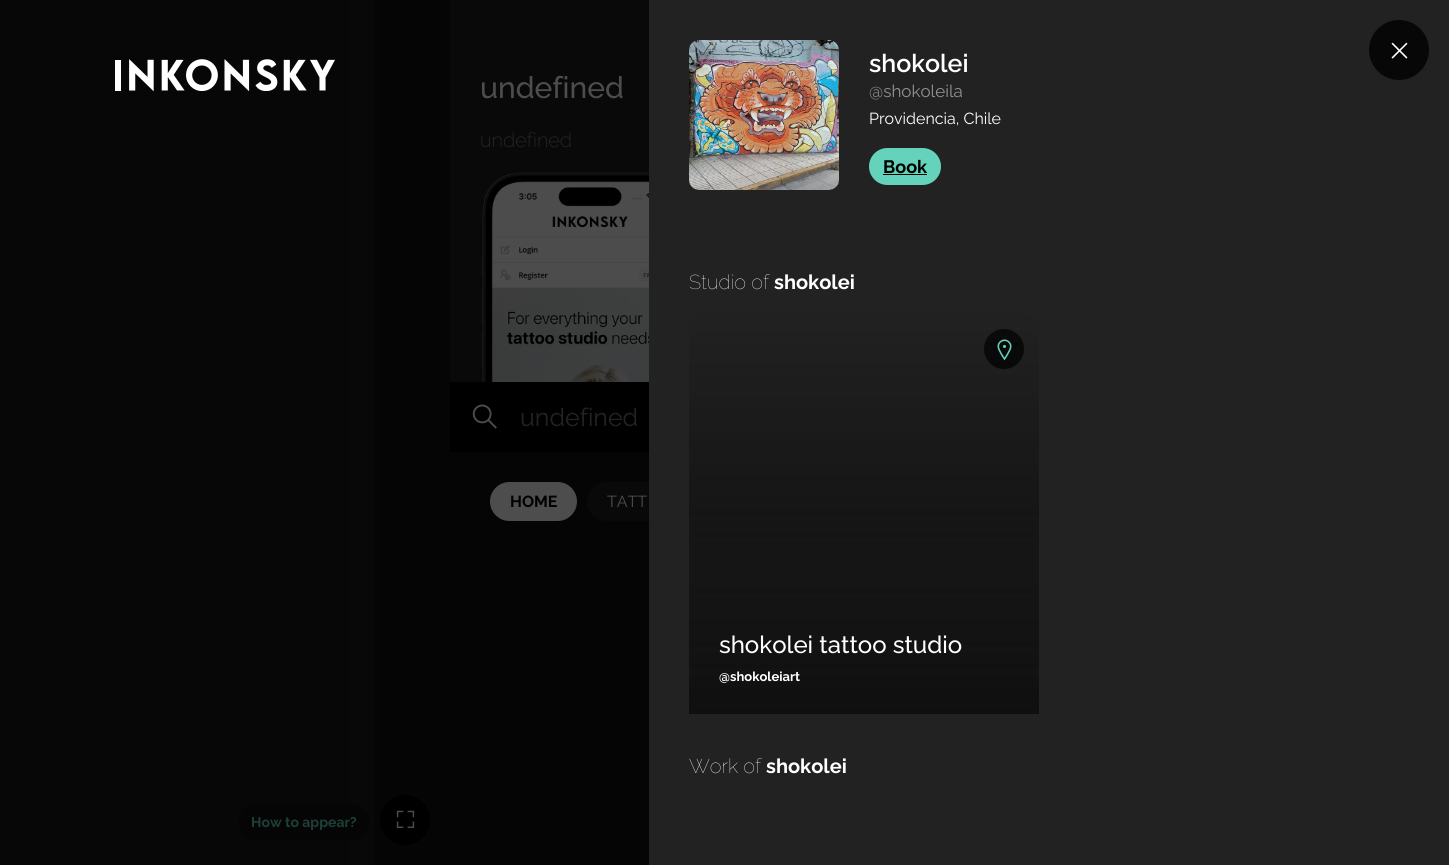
import math
import cairo


def round_path(ctx, x, y, w, h, r):
	ctx.new_sub_path()
	for i, (u, v) in enumerate([(x + w - r, y + h - r), (x + r, y + h - r), (x + r, y + r), (x + w - r, y + r)]):
		ctx.arc(u, v, r, i * math.pi / 2, (i + 1) * math.pi / 2)
	ctx.close_path()

def paste(ctx, path, x, y, w, h):
	ctx.save()
	ctx.set_source_surface(cairo.ImageSurface.create_from_png(path), x, y)
	ctx.rectangle(x, y, w, h)
	ctx.fill()
	ctx.restore()

def draw(ctx):
	ctx.set_source_rgb(0.02, 0.02, 0.02)
	ctx.paint()
	ctx.set_source_rgb(0.031, 0.031, 0.031)
	ctx.rectangle(0, 0, 350, 865)
	ctx.fill()
	paste(ctx, 'media/1.png', 115, 59, 220, 32)
	ctx.set_source_rgb(0.039, 0.039, 0.039)
	ctx.rectangle(450, 0, 199, 382)
	ctx.fill()
	ctx.select_font_face('Raleway Medium')
	ctx.set_font_size(30)
	ctx.set_source_rgb(0.302, 0.302, 0.302)
	ctx.move_to(480, 98)
	ctx.show_text('undefined')
	ctx.select_font_face('Raleway ExtraLight')
	ctx.set_font_size(20)
	ctx.set_source_rgb(0.173, 0.173, 0.173)
	ctx.move_to(480, 147)
	ctx.show_text('undefined')
	paste(ctx, 'media/2.png', 481, 172, 168, 210)
	ctx.set_source_rgb(0.039, 0.039, 0.039)
	round_path(ctx, 587, 482, 173, 39, 19.5)
	ctx.fill()
	ctx.set_source_rgb(0.133, 0.133, 0.133)
	ctx.rectangle(649, 0, 800, 865)
	ctx.fill()
	paste(ctx, 'media/3.png', 689, 40, 150, 150)
	ctx.select_font_face('Raleway SemiBold')
	ctx.set_font_size(25)
	ctx.set_source_rgb(1, 1, 1)
	ctx.move_to(869, 72)
	ctx.show_text('shokolei')
	ctx.set_source_rgb(0.031, 0.031, 0.031)
	ctx.new_path()
	ctx.arc(1399, 50, 30, 0, 2 * math.pi)
	ctx.fill()
	paste(ctx, 'media/4.png', 1391, 42, 17, 17)
	ctx.select_font_face('Raleway')
	ctx.set_font_size(17)
	ctx.set_source_rgb(0.569, 0.569, 0.569)
	ctx.move_to(869, 97)
	ctx.show_text('@shokoleila')
	ctx.set_font_size(16)
	ctx.set_source_rgb(1, 1, 1)
	ctx.move_to(869, 124)
	ctx.show_text('Providencia, Chile')
	ctx.set_source_rgb(0.396, 0.827, 0.733)
	round_path(ctx, 869, 148, 72, 37, 18.5)
	ctx.fill()
	ctx.select_font_face('Raleway', cairo.FONT_SLANT_NORMAL, cairo.FONT_WEIGHT_BOLD)
	ctx.set_font_size(18)
	ctx.set_source_rgb(0, 0, 0)
	ctx.move_to(883, 173)
	ctx.show_text('Book')
	ctx.rectangle(883, 174, 44, 1)
	ctx.fill()
	ctx.select_font_face('Raleway Thin')
	ctx.set_font_size(20)
	ctx.set_source_rgb(1, 1, 1)
	ctx.move_to(689, 289)
	ctx.show_text('Studio of')
	ctx.select_font_face('Raleway', cairo.FONT_SLANT_NORMAL, cairo.FONT_WEIGHT_BOLD)
	ctx.move_to(774, 289)
	ctx.show_text('shokolei')
	gradient = cairo.LinearGradient(864, 314, 864, 714)
	gradient.add_color_stop_rgba(0, 0.2, 0.2, 0.2, 1)
	gradient.add_color_stop_rgba(1, 0.059, 0.059, 0.059, 1)
	ctx.set_source(gradient)
	ctx.new_path()
	ctx.move_to(699, 314)
	ctx.line_to(1029, 314)
	ctx.curve_to(1034.5, 314, 1039, 318.5, 1039, 324)
	ctx.line_to(1039, 714)
	ctx.line_to(689, 714)
	ctx.line_to(689, 324)
	ctx.curve_to(689, 318.5, 693.5, 314, 699, 314)
	ctx.close_path()
	ctx.fill()
	gradient = cairo.LinearGradient(864, 314, 864, 714)
	gradient.add_color_stop_rgba(0, 0, 0, 0, 0.35)
	gradient.add_color_stop_rgba(0.5, 0, 0, 0, 0.35)
	gradient.add_color_stop_rgba(1, 0, 0, 0, 0)
	ctx.set_source(gradient)
	ctx.new_path()
	ctx.move_to(699, 314)
	ctx.line_to(1029, 314)
	ctx.curve_to(1034.5, 314, 1039, 318.5, 1039, 324)
	ctx.line_to(1039, 714)
	ctx.line_to(689, 714)
	ctx.line_to(689, 324)
	ctx.curve_to(689, 318.5, 693.5, 314, 699, 314)
	ctx.close_path()
	ctx.fill()
	ctx.set_source_rgba(0, 0, 0, 0.7)
	ctx.arc(1004, 349, 20, 0, 2 * math.pi)
	ctx.fill()
	paste(ctx, 'media/5.png', 997, 339, 15, 22)
	ctx.select_font_face('Raleway Medium')
	ctx.set_font_size(24)
	ctx.set_source_rgb(1, 1, 1)
	ctx.move_to(719, 653)
	ctx.show_text('shokolei tattoo studio')
	ctx.select_font_face('Raleway', cairo.FONT_SLANT_NORMAL, cairo.FONT_WEIGHT_BOLD)
	ctx.set_font_size(13)
	ctx.move_to(719, 681)
	ctx.show_text('@shokoleiart')
	ctx.select_font_face('Raleway Thin')
	ctx.set_font_size(20)
	ctx.move_to(689, 773)
	ctx.show_text('Work of')
	ctx.select_font_face('Raleway', cairo.FONT_SLANT_NORMAL, cairo.FONT_WEIGHT_BOLD)
	ctx.move_to(766, 773)
	ctx.show_text('shokolei')
	ctx.set_source_rgb(0, 0, 0)
	ctx.rectangle(450, 382, 199, 70)
	ctx.fill()
	paste(ctx, 'media/6.png', 472, 404, 25, 25)
	ctx.select_font_face('Raleway')
	ctx.set_font_size(25)
	ctx.set_source_rgb(0.137, 0.137, 0.137)
	ctx.move_to(520, 426)
	ctx.show_text('undefined')
	ctx.set_source_rgb(0.302, 0.302, 0.302)
	round_path(ctx, 490, 482, 87, 39, 19.5)
	ctx.fill()
	ctx.select_font_face('Raleway', cairo.FONT_SLANT_NORMAL, cairo.FONT_WEIGHT_BOLD)
	ctx.set_font_size(16)
	ctx.set_source_rgb(0, 0, 0)
	ctx.move_to(510, 507)
	ctx.show_text('HOME')
	ctx.select_font_face('Raleway')
	ctx.set_source_rgb(0.302, 0.302, 0.302)
	ctx.move_to(607, 507)
	ctx.show_text('TATT')
	gradient = cairo.LinearGradient(350, 433, 450, 433)
	gradient.add_color_stop_rgba(0, 0.031, 0.031, 0.031, 1)
	gradient.add_color_stop_rgba(1, 0.024, 0.024, 0.024, 1)
	ctx.set_source(gradient)
	ctx.rectangle(350, 0, 25, 865)
	ctx.fill()
	ctx.set_source_rgb(0.02, 0.02, 0.02)
	round_path(ctx, 238, 804, 132, 36, 18)
	ctx.fill()
	ctx.select_font_face('Raleway', cairo.FONT_SLANT_NORMAL, cairo.FONT_WEIGHT_BOLD)
	ctx.set_font_size(14)
	ctx.set_source_rgb(0.118, 0.247, 0.22)
	ctx.move_to(251, 827)
	ctx.show_text('How to appear?')
	ctx.set_source_rgb(0, 0, 0)
	ctx.new_path()
	ctx.arc(405, 820, 25, 0, 2 * math.pi)
	ctx.fill()
	paste(ctx, 'media/7.png', 396, 810, 19, 18)


surface = cairo.ImageSurface(cairo.FORMAT_RGB24, 1449, 865)
ctx = cairo.Context(surface)
options = cairo.FontOptions()
options.set_hint_metrics(cairo.HINT_METRICS_OFF)
options.set_hint_style(cairo.HINT_STYLE_NONE)
ctx.set_font_options(options)
ctx.set_miter_limit(4)
draw(ctx)
surface.write_to_png('image.png')
